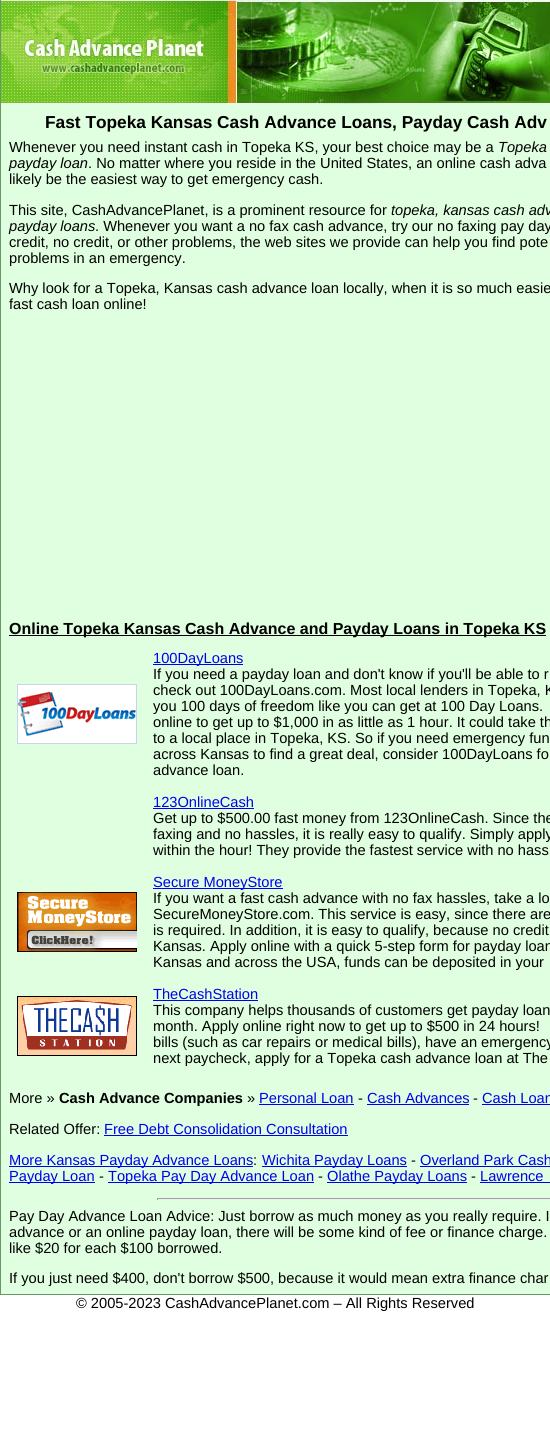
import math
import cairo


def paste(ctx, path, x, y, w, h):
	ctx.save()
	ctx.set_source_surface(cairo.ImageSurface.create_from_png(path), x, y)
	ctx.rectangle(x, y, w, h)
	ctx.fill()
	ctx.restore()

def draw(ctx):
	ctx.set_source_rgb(1, 1, 1)
	ctx.paint()
	ctx.set_source_rgb(0.878, 1, 0.878)
	ctx.rectangle(1, 104, 549, 1190)
	ctx.fill()
	ctx.set_source_rgb(0.4, 0.6, 0.4)
	ctx.rectangle(0, 1294, 550, 1)
	ctx.rectangle(0, 0, 1, 1295)
	ctx.fill()
	paste(ctx, 'media/1.png', 1, 0, 549, 104)
	ctx.select_font_face('Liberation Sans', cairo.FONT_SLANT_NORMAL, cairo.FONT_WEIGHT_BOLD)
	ctx.set_font_size(17.3)
	ctx.set_source_rgb(0, 0, 0)
	ctx.move_to(45, 128)
	ctx.show_text('Fast Topeka Kansas Cash Advance Loans, Payday Cash Adv')
	ctx.select_font_face('Liberation Sans')
	ctx.set_font_size(14.65)
	ctx.move_to(9, 152)
	ctx.show_text('Whenever you need instant cash in Topeka KS, your best choice may be a')
	ctx.select_font_face('Liberation Sans', cairo.FONT_SLANT_ITALIC)
	ctx.move_to(498, 152)
	ctx.show_text('Topeka')
	ctx.move_to(9, 168)
	ctx.show_text('payday loan')
	ctx.select_font_face('Liberation Sans')
	for x, y, s in [
		(88, 168, '. No matter where you reside in the United States, an online cash adva'),
		(9, 184, 'likely be the easiest way to get emergency cash.'),
		(9, 215, 'This site, CashAdvancePlanet, is a prominent resource for'),
	]:
		ctx.move_to(x, y)
		ctx.show_text(s)
	ctx.select_font_face('Liberation Sans', cairo.FONT_SLANT_ITALIC)
	ctx.move_to(391, 215)
	ctx.show_text('topeka, kansas cash adv')
	ctx.move_to(9, 231)
	ctx.show_text('payday loans')
	ctx.select_font_face('Liberation Sans')
	for x, y, s in [
		(95, 231, '. Whenever you want a no fax cash advance, try our no faxing pay day'),
		(9, 247, 'credit, no credit, or other problems, the web sites we provide can help you find pote'),
		(9, 263, 'problems in an emergency.'),
		(9, 293, 'Why look for a Topeka, Kansas cash advance loan locally, when it is so much easie'),
		(9, 309, 'fast cash loan online!'),
	]:
		ctx.move_to(x, y)
		ctx.show_text(s)
	ctx.rectangle(9, 635, 537, 1)
	ctx.fill()
	ctx.select_font_face('Liberation Sans', cairo.FONT_SLANT_NORMAL, cairo.FONT_WEIGHT_BOLD)
	ctx.set_font_size(16)
	ctx.move_to(9, 634)
	ctx.show_text('Online Topeka Kansas Cash Advance and Payday Loans in Topeka KS')
	paste(ctx, 'media/2.png', 17, 684, 120, 60)
	ctx.set_source_rgb(0, 0, 0.933)
	ctx.rectangle(153, 664, 90, 1)
	ctx.fill()
	ctx.select_font_face('Liberation Sans')
	ctx.set_font_size(14.65)
	ctx.move_to(153, 663)
	ctx.show_text('100DayLoans')
	ctx.set_source_rgb(0, 0, 0)
	for x, y, s in [
		(153, 679, 'If you need a payday loan and don\'t know if you\'ll be able to r'),
		(153, 695, 'check out 100DayLoans.com. Most local lenders in Topeka, K'),
		(153, 711, 'you 100 days of freedom like you can get at 100 Day Loans.'),
		(153, 727, 'online to get up to $1,000 in as little as 1 hour. It could take th'),
		(153, 743, 'to a local place in Topeka, KS. So if you need emergency fun'),
		(153, 759, 'across Kansas to find a great deal, consider 100DayLoans fo'),
		(153, 775, 'advance loan.'),
	]:
		ctx.move_to(x, y)
		ctx.show_text(s)
	ctx.set_source_rgb(0, 0, 0.933)
	ctx.move_to(153, 807)
	ctx.show_text('123OnlineCash')
	ctx.rectangle(153, 808, 101, 1)
	ctx.fill()
	ctx.set_source_rgb(0, 0, 0)
	for x, y, s in [
		(153, 823, 'Get up to $500.00 fast money from 123OnlineCash. Since the'),
		(153, 839, 'faxing and no hassles, it is really easy to qualify. Simply apply'),
		(153, 855, 'within the hour! They provide the fastest service with no hass'),
	]:
		ctx.move_to(x, y)
		ctx.show_text(s)
	paste(ctx, 'media/3.png', 17, 892, 120, 60)
	ctx.set_source_rgb(0, 0, 0.933)
	ctx.rectangle(153, 888, 130, 1)
	ctx.fill()
	ctx.move_to(153, 887)
	ctx.show_text('Secure MoneyStore')
	ctx.set_source_rgb(0, 0, 0)
	for x, y, s in [
		(153, 903, 'If you want a fast cash advance with no fax hassles, take a lo'),
		(153, 919, 'SecureMoneyStore.com. This service is easy, since there are'),
		(153, 935, 'is required. In addition, it is easy to qualify, because no credit'),
		(153, 951, 'Kansas. Apply online with a quick 5-step form for payday loan'),
		(153, 967, 'Kansas and across the USA, funds can be deposited in your'),
	]:
		ctx.move_to(x, y)
		ctx.show_text(s)
	paste(ctx, 'media/4.png', 17, 996, 120, 60)
	ctx.set_source_rgb(0, 0, 0.933)
	ctx.move_to(153, 999)
	ctx.show_text('TheCashStation')
	ctx.rectangle(153, 1000, 105, 1)
	ctx.fill()
	ctx.set_source_rgb(0, 0, 0)
	for x, y, s in [
		(153, 1015, 'This company helps thousands of customers get payday loan'),
		(153, 1031, 'month. Apply online right now to get up to $500 in 24 hours!'),
		(153, 1047, 'bills (such as car repairs or medical bills), have an emergency'),
		(153, 1063, 'next paycheck, apply for a Topeka cash advance loan at The'),
		(9, 1103, 'More »'),
	]:
		ctx.move_to(x, y)
		ctx.show_text(s)
	ctx.select_font_face('Liberation Sans', cairo.FONT_SLANT_NORMAL, cairo.FONT_WEIGHT_BOLD)
	ctx.move_to(59, 1103)
	ctx.show_text('Cash Advance Companies')
	ctx.select_font_face('Liberation Sans')
	ctx.move_to(247, 1103)
	ctx.show_text('»')
	ctx.set_source_rgb(0, 0, 0.933)
	ctx.move_to(259, 1103)
	ctx.show_text('Personal Loan')
	ctx.rectangle(259, 1104, 95, 1)
	ctx.fill()
	ctx.set_source_rgb(0, 0, 0)
	ctx.move_to(358, 1103)
	ctx.show_text('-')
	ctx.set_source_rgb(0, 0, 0.933)
	ctx.move_to(367, 1103)
	ctx.show_text('Cash Advances')
	ctx.rectangle(367, 1104, 102, 1)
	ctx.fill()
	ctx.set_source_rgb(0, 0, 0)
	ctx.move_to(473, 1103)
	ctx.show_text('-')
	ctx.set_source_rgb(0, 0, 0.933)
	ctx.move_to(482, 1103)
	ctx.show_text('Cash Loan')
	ctx.rectangle(482, 1104, 68, 1)
	ctx.fill()
	ctx.set_source_rgb(0, 0, 0)
	ctx.move_to(9, 1134)
	ctx.show_text('Related Offer:')
	ctx.set_source_rgb(0, 0, 0.933)
	ctx.move_to(104, 1134)
	ctx.show_text('Free Debt Consolidation Consultation')
	ctx.rectangle(104, 1135, 244, 1)
	ctx.fill()
	ctx.rectangle(9, 1166, 244, 1)
	ctx.fill()
	ctx.move_to(9, 1165)
	ctx.show_text('More Kansas Payday Advance Loans')
	ctx.set_source_rgb(0, 0, 0)
	ctx.move_to(253, 1165)
	ctx.show_text(':')
	ctx.set_source_rgb(0, 0, 0.933)
	ctx.rectangle(262, 1166, 145, 1)
	ctx.fill()
	ctx.move_to(262, 1165)
	ctx.show_text('Wichita Payday Loans')
	ctx.set_source_rgb(0, 0, 0)
	ctx.move_to(411, 1165)
	ctx.show_text('-')
	ctx.set_source_rgb(0, 0, 0.933)
	ctx.move_to(420, 1165)
	ctx.show_text('Overland Park Cash')
	ctx.rectangle(420, 1166, 130, 1)
	ctx.fill()
	ctx.rectangle(9, 1182, 86, 1)
	ctx.fill()
	ctx.move_to(9, 1181)
	ctx.show_text('Payday Loan')
	ctx.set_source_rgb(0, 0, 0)
	ctx.move_to(99, 1181)
	ctx.show_text('-')
	ctx.set_source_rgb(0, 0, 0.933)
	ctx.rectangle(108, 1182, 206, 1)
	ctx.fill()
	ctx.move_to(108, 1181)
	ctx.show_text('Topeka Pay Day Advance Loan')
	ctx.set_source_rgb(0, 0, 0)
	ctx.move_to(318, 1181)
	ctx.show_text('-')
	ctx.set_source_rgb(0, 0, 0.933)
	ctx.rectangle(327, 1182, 140, 1)
	ctx.fill()
	ctx.move_to(327, 1181)
	ctx.show_text('Olathe Payday Loans')
	ctx.set_source_rgb(0, 0, 0)
	ctx.move_to(471, 1181)
	ctx.show_text('-')
	ctx.set_source_rgb(0, 0, 0.933)
	ctx.move_to(480, 1181)
	ctx.show_text('Lawrence')
	ctx.rectangle(480, 1182, 70, 1)
	ctx.fill()
	ctx.set_source_rgb(0.624, 0.624, 0.624)
	ctx.rectangle(157, 1198, 393, 1)
	ctx.fill()
	ctx.set_source_rgb(0.933, 0.933, 0.933)
	ctx.rectangle(157, 1199, 393, 1)
	ctx.fill()
	ctx.set_source_rgb(0.624, 0.624, 0.624)
	ctx.rectangle(157, 1198, 1, 2)
	ctx.fill()
	ctx.set_source_rgb(0, 0, 0)
	for x, y, s in [
		(9, 1221, 'Pay Day Advance Loan Advice: Just borrow as much money as you really require. I'),
		(9, 1237, 'advance or an online payday loan, there will be some kind of fee or finance charge.'),
		(9, 1253, 'like $20 for each $100 borrowed.'),
		(9, 1283, 'If you just need $400, don\'t borrow $500, because it would mean extra finance char'),
		(76, 1308, '© 2005-2023 CashAdvancePlanet.com – All Rights Reserved'),
	]:
		ctx.move_to(x, y)
		ctx.show_text(s)


surface = cairo.ImageSurface(cairo.FORMAT_RGB24, 550, 1434)
ctx = cairo.Context(surface)
options = cairo.FontOptions()
options.set_hint_metrics(cairo.HINT_METRICS_OFF)
options.set_hint_style(cairo.HINT_STYLE_NONE)
ctx.set_font_options(options)
ctx.set_miter_limit(4)
draw(ctx)
surface.write_to_png('image.png')
